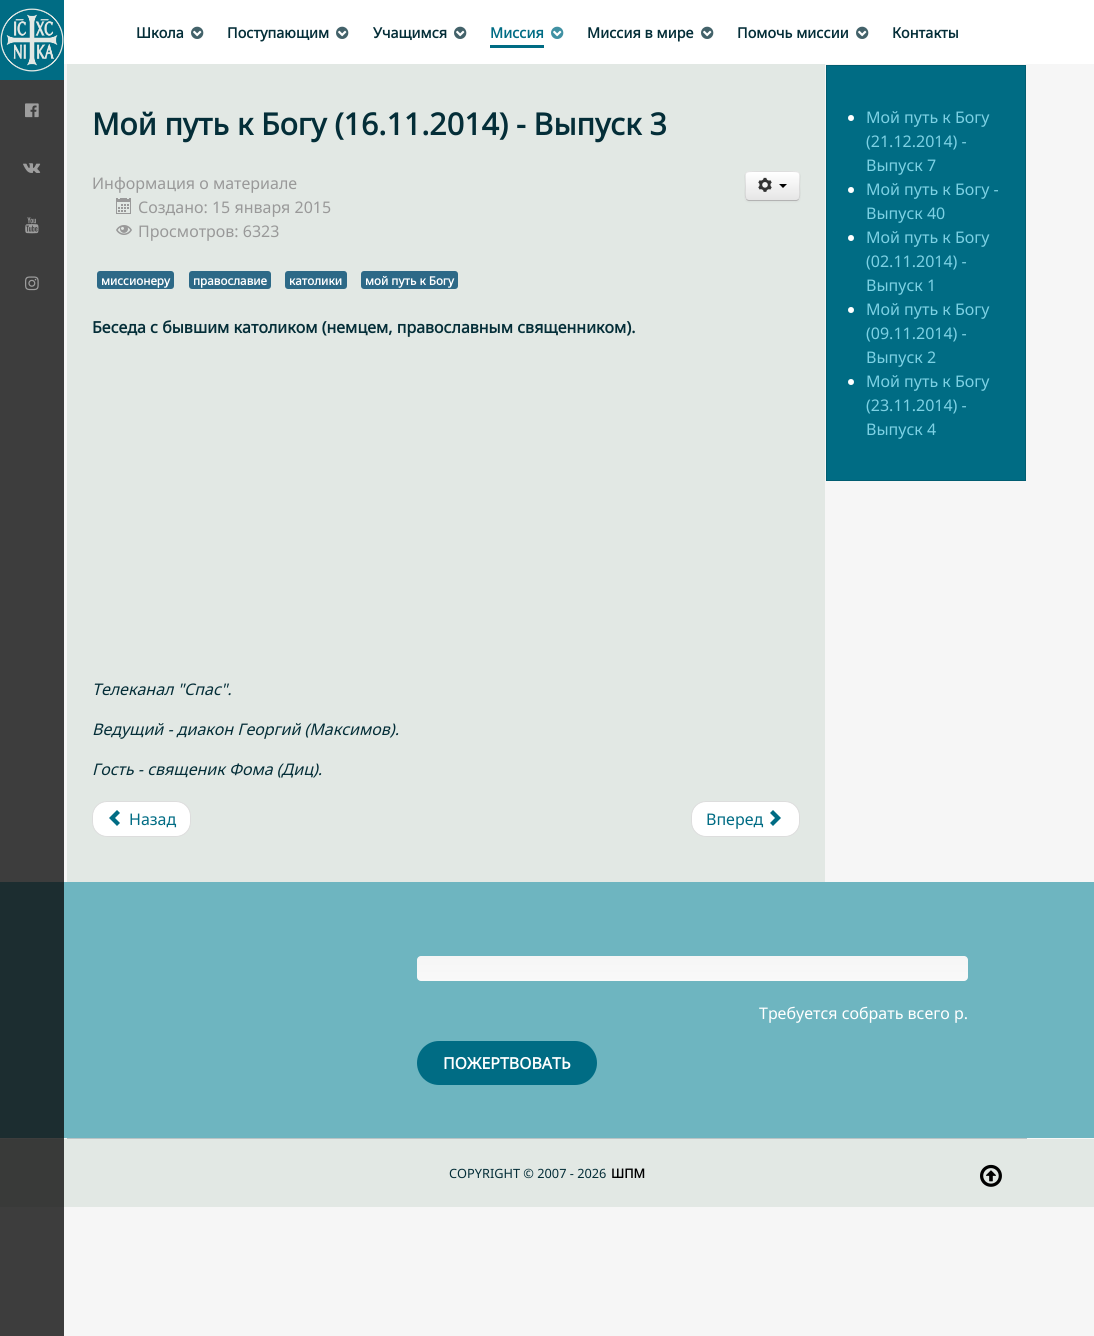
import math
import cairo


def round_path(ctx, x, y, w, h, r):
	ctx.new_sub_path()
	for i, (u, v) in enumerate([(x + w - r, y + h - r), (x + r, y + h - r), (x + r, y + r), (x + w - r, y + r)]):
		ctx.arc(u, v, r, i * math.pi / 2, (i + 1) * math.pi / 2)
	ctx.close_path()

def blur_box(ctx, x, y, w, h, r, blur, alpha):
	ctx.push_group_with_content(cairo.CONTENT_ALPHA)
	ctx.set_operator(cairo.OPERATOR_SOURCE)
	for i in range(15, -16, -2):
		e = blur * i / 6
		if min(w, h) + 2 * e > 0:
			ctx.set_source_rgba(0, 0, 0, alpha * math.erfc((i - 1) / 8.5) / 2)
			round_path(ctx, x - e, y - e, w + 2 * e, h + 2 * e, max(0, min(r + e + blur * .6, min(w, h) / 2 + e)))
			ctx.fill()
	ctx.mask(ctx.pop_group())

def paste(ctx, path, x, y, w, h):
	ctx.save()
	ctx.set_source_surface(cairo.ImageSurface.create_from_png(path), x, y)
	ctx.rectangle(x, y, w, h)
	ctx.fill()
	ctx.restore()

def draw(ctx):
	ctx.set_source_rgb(0.961, 0.961, 0.961)
	ctx.paint()
	ctx.set_source_rgb(0.239, 0.239, 0.239)
	ctx.rectangle(0, 80, 64, 1256)
	ctx.fill()
	ctx.set_source_rgb(0, 0.424, 0.518)
	ctx.rectangle(0, 0, 64, 80)
	ctx.fill()
	paste(ctx, 'media/1.png', 0, 8, 64, 64)
	paste(ctx, 'media/2.png', 25, 103, 14, 15)
	paste(ctx, 'media/3.png', 23, 163, 18, 10)
	paste(ctx, 'media/4.png', 25, 217, 14, 17)
	paste(ctx, 'media/5.png', 25, 276, 14, 15)
	ctx.set_source_rgb(1, 1, 1)
	ctx.rectangle(64, 0, 1030, 64)
	ctx.fill()
	ctx.select_font_face('Noto Sans', cairo.FONT_SLANT_NORMAL, cairo.FONT_WEIGHT_BOLD)
	ctx.set_font_size(14.5)
	ctx.set_source_rgb(0.016, 0.18, 0.22)
	ctx.move_to(136, 38)
	ctx.show_text('Школа')
	paste(ctx, 'media/6.png', 191, 26, 13, 13)
	ctx.move_to(227, 38)
	ctx.show_text('Поступающим')
	paste(ctx, 'media/6.png', 336, 26, 13, 13)
	ctx.move_to(373, 38)
	ctx.show_text('Учащимся')
	paste(ctx, 'media/6.png', 454, 26, 13, 13)
	ctx.set_source_rgb(0, 0.424, 0.518)
	ctx.move_to(490, 38)
	ctx.show_text('Миссия')
	ctx.rectangle(490, 45, 54, 3)
	ctx.fill()
	paste(ctx, 'media/7.png', 551, 26, 13, 13)
	ctx.set_source_rgb(0.016, 0.18, 0.22)
	ctx.move_to(587, 38)
	ctx.show_text('Миссия в мире')
	paste(ctx, 'media/6.png', 701, 26, 13, 13)
	ctx.move_to(737, 38)
	ctx.show_text('Помочь миссии')
	paste(ctx, 'media/6.png', 856, 26, 13, 13)
	ctx.move_to(892, 38)
	ctx.show_text('Контакты')
	ctx.set_source_rgb(0.886, 0.91, 0.894)
	ctx.rectangle(67, 64, 758, 818)
	ctx.fill()
	ctx.set_font_size(30.4)
	ctx.set_source_rgb(0.016, 0.18, 0.22)
	ctx.move_to(92, 135)
	ctx.show_text('Мой путь к Богу (16.11.2014) - Выпуск 3')
	ctx.select_font_face('Noto Sans')
	ctx.set_font_size(16)
	ctx.set_source_rgb(0.6, 0.6, 0.6)
	ctx.move_to(92, 189)
	ctx.show_text('Информация о материале')
	paste(ctx, 'media/8.png', 116, 198, 15, 16)
	ctx.move_to(138, 213)
	ctx.show_text('Создано: 15 января 2015')
	paste(ctx, 'media/9.png', 116, 225, 16, 10)
	ctx.move_to(138, 237)
	ctx.show_text('Просмотров: 6323')
	ctx.set_source_rgb(0, 0, 0)
	blur_box(ctx, 745, 172, 55, 30, 4, 1, 0.05)
	ctx.set_source_rgb(0.961, 0.961, 0.961)
	round_path(ctx, 745, 171, 55, 30, 4)
	ctx.fill()
	ctx.save()
	round_path(ctx, 745, 171, 55, 30, 4)
	ctx.clip()
	gradient = cairo.LinearGradient(773, 172, 773, 200)
	gradient.add_color_stop_rgba(0, 1, 1, 1, 1)
	gradient.add_color_stop_rgba(1, 0.902, 0.902, 0.902, 1)
	ctx.set_source(gradient)
	ctx.rectangle(745, 172, 55, 28)
	ctx.fill()
	ctx.restore()
	ctx.set_source_rgb(1, 1, 1)
	ctx.new_path()
	ctx.move_to(749, 173)
	ctx.line_to(796, 173)
	ctx.curve_to(798, 173, 799, 174, 799, 176)
	ctx.curve_to(799, 170, 793, 172, 788, 172)
	ctx.line_to(757, 172)
	ctx.curve_to(752, 172, 746, 170, 746, 176)
	ctx.curve_to(746, 174, 747, 173, 749, 173)
	ctx.close_path()
	ctx.fill()
	ctx.new_path()
	ctx.move_to(798.5, 199.5)
	ctx.curve_to(798, 200, 797, 200.5, 796, 200.5)
	ctx.line_to(749, 200.5)
	ctx.curve_to(748, 200.5, 747, 200, 746.5, 199.5)
	ctx.set_source_rgb(0.702, 0.702, 0.702)
	ctx.set_line_width(1)
	ctx.stroke()
	ctx.new_path()
	ctx.move_to(746.5, 199.5)
	ctx.curve_to(744.5, 197.5, 745.5, 189, 745.5, 186)
	ctx.curve_to(745.5, 171.5, 742.5, 171.5, 757, 171.5)
	ctx.line_to(788, 171.5)
	ctx.curve_to(802.5, 171.5, 799.5, 171.5, 799.5, 186)
	ctx.curve_to(799.5, 189, 800.5, 197.5, 798.5, 199.5)
	ctx.set_source_rgba(0, 0, 0, 0.1)
	ctx.stroke()
	paste(ctx, 'media/10.png', 758, 177, 14, 15)
	ctx.set_source_rgb(0, 0, 0)
	ctx.new_path()
	ctx.move_to(779, 184)
	ctx.line_to(787, 184)
	ctx.line_to(783, 188)
	ctx.close_path()
	ctx.fill()
	ctx.set_source_rgb(0.176, 0.412, 0.529)
	round_path(ctx, 97, 271, 77, 18, 3)
	ctx.fill()
	ctx.select_font_face('Noto Sans', cairo.FONT_SLANT_NORMAL, cairo.FONT_WEIGHT_BOLD)
	ctx.set_font_size(11.75)
	ctx.set_source_rgb(1, 1, 1)
	ctx.move_to(101, 285)
	ctx.show_text('миссионеру')
	ctx.set_source_rgb(0.176, 0.412, 0.529)
	round_path(ctx, 189, 271, 82, 18, 3)
	ctx.fill()
	ctx.set_source_rgb(1, 1, 1)
	ctx.move_to(193, 285)
	ctx.show_text('православие')
	ctx.set_source_rgb(0.176, 0.412, 0.529)
	round_path(ctx, 285, 271, 62, 18, 3)
	ctx.fill()
	ctx.set_source_rgb(1, 1, 1)
	ctx.move_to(289, 285)
	ctx.show_text('католики')
	ctx.set_source_rgb(0.176, 0.412, 0.529)
	round_path(ctx, 361, 271, 97, 18, 3)
	ctx.fill()
	ctx.set_source_rgb(1, 1, 1)
	ctx.move_to(365, 285)
	ctx.show_text('мой путь к Богу')
	ctx.set_font_size(16)
	ctx.set_source_rgb(0.016, 0.18, 0.22)
	ctx.move_to(92, 333)
	ctx.show_text('Беседа с бывшим католиком (немцем, православным священником).')
	ctx.select_font_face('Noto Sans', cairo.FONT_SLANT_ITALIC)
	for x, y, s in [
		(92, 695, 'Телеканал "Спас".'),
		(92, 735, 'Ведущий - диакон Георгий (Максимов).'),
		(92, 775, 'Гость - священик Фома (Диц).'),
	]:
		ctx.move_to(x, y)
		ctx.show_text(s)
	ctx.set_source_rgb(1, 1, 1)
	round_path(ctx, 92.5, 801.5, 98, 35, 14.5)
	ctx.fill_preserve()
	ctx.set_source_rgb(0.867, 0.867, 0.867)
	ctx.stroke()
	paste(ctx, 'media/11.png', 109, 810, 11, 16)
	ctx.select_font_face('Noto Sans')
	ctx.set_source_rgb(0, 0.424, 0.518)
	ctx.move_to(129, 825)
	ctx.show_text('Назад')
	ctx.set_source_rgb(1, 1, 1)
	round_path(ctx, 691.5, 801.5, 108, 35, 14.5)
	ctx.fill_preserve()
	ctx.set_source_rgb(0.867, 0.867, 0.867)
	ctx.stroke()
	ctx.set_source_rgb(0, 0.424, 0.518)
	ctx.move_to(706, 825)
	ctx.show_text('Вперед')
	paste(ctx, 'media/12.png', 770, 810, 11, 16)
	ctx.rectangle(826.5, 65.5, 199, 415)
	ctx.fill_preserve()
	ctx.set_source_rgb(0.004, 0.365, 0.443)
	ctx.stroke()
	ctx.set_source_rgb(1, 1, 1)
	ctx.arc(851, 118, 3, 0, 2 * math.pi)
	ctx.fill()
	ctx.set_source_rgb(0.49, 0.82, 0.894)
	for x, y, s in [
		(866, 123, 'Мой путь к Богу'),
		(866, 147, '(21.12.2014) -'),
		(866, 171, 'Выпуск 7'),
	]:
		ctx.move_to(x, y)
		ctx.show_text(s)
	ctx.set_source_rgb(1, 1, 1)
	ctx.new_path()
	ctx.arc(851, 190, 3, 0, 2 * math.pi)
	ctx.fill()
	ctx.set_source_rgb(0.49, 0.82, 0.894)
	ctx.move_to(866, 195)
	ctx.show_text('Мой путь к Богу -')
	ctx.move_to(866, 219)
	ctx.show_text('Выпуск 40')
	ctx.set_source_rgb(1, 1, 1)
	ctx.new_path()
	ctx.arc(851, 238, 3, 0, 2 * math.pi)
	ctx.fill()
	ctx.set_source_rgb(0.49, 0.82, 0.894)
	for x, y, s in [
		(866, 243, 'Мой путь к Богу'),
		(866, 267, '(02.11.2014) -'),
		(866, 291, 'Выпуск 1'),
	]:
		ctx.move_to(x, y)
		ctx.show_text(s)
	ctx.set_source_rgb(1, 1, 1)
	ctx.new_path()
	ctx.arc(851, 310, 3, 0, 2 * math.pi)
	ctx.fill()
	ctx.set_source_rgb(0.49, 0.82, 0.894)
	for x, y, s in [
		(866, 315, 'Мой путь к Богу'),
		(866, 339, '(09.11.2014) -'),
		(866, 363, 'Выпуск 2'),
	]:
		ctx.move_to(x, y)
		ctx.show_text(s)
	ctx.set_source_rgb(1, 1, 1)
	ctx.new_path()
	ctx.arc(851, 382, 3, 0, 2 * math.pi)
	ctx.fill()
	ctx.set_source_rgb(0.49, 0.82, 0.894)
	for x, y, s in [
		(866, 387, 'Мой путь к Богу'),
		(866, 411, '(23.11.2014) -'),
		(866, 435, 'Выпуск 4'),
	]:
		ctx.move_to(x, y)
		ctx.show_text(s)
	ctx.set_source_rgb(0.431, 0.71, 0.753)
	ctx.rectangle(64, 882, 1030, 256)
	ctx.fill()
	ctx.set_source_rgb(0.11, 0.176, 0.188)
	ctx.rectangle(0, 882, 64, 256)
	ctx.fill()
	gradient = cairo.LinearGradient(693, 956, 693, 981)
	gradient.add_color_stop_rgba(0, 0.961, 0.961, 0.961, 1)
	gradient.add_color_stop_rgba(1, 0.976, 0.976, 0.976, 1)
	ctx.set_source(gradient)
	round_path(ctx, 417, 956, 551, 25, 4)
	ctx.fill()
	ctx.set_source_rgb(1, 1, 1)
	ctx.move_to(759, 1019)
	ctx.show_text('Требуется собрать всего р.')
	ctx.set_source_rgb(0, 0.424, 0.518)
	round_path(ctx, 417, 1041, 180, 44, 22)
	ctx.fill()
	ctx.select_font_face('Noto Sans', cairo.FONT_SLANT_NORMAL, cairo.FONT_WEIGHT_BOLD)
	ctx.set_source_rgb(1, 1, 1)
	ctx.move_to(443, 1069)
	ctx.show_text('ПОЖЕРТВОВАТЬ')
	ctx.set_source_rgb(0.725, 0.765, 0.776)
	ctx.rectangle(67, 1138, 960, 1)
	ctx.fill()
	ctx.set_source_rgb(0.886, 0.91, 0.894)
	ctx.rectangle(64, 1139, 1030, 68)
	ctx.fill()
	ctx.set_source_rgb(0.224, 0.227, 0.224)
	ctx.rectangle(0, 1139, 64, 68)
	ctx.fill()
	ctx.select_font_face('Noto Sans')
	ctx.set_font_size(12.75)
	ctx.set_source_rgb(0.016, 0.18, 0.22)
	ctx.move_to(449, 1178)
	ctx.show_text('COPYRIGHT © 2007 - 2026')
	ctx.select_font_face('Noto Sans', cairo.FONT_SLANT_NORMAL, cairo.FONT_WEIGHT_BOLD)
	ctx.set_source_rgb(0, 0, 0)
	ctx.move_to(611, 1178)
	ctx.show_text('ШПМ')
	paste(ctx, 'media/13.png', 980, 1164, 22, 23)


surface = cairo.ImageSurface(cairo.FORMAT_RGB24, 1094, 1336)
ctx = cairo.Context(surface)
options = cairo.FontOptions()
options.set_hint_metrics(cairo.HINT_METRICS_OFF)
options.set_hint_style(cairo.HINT_STYLE_NONE)
ctx.set_font_options(options)
ctx.set_miter_limit(4)
draw(ctx)
surface.write_to_png('image.png')
